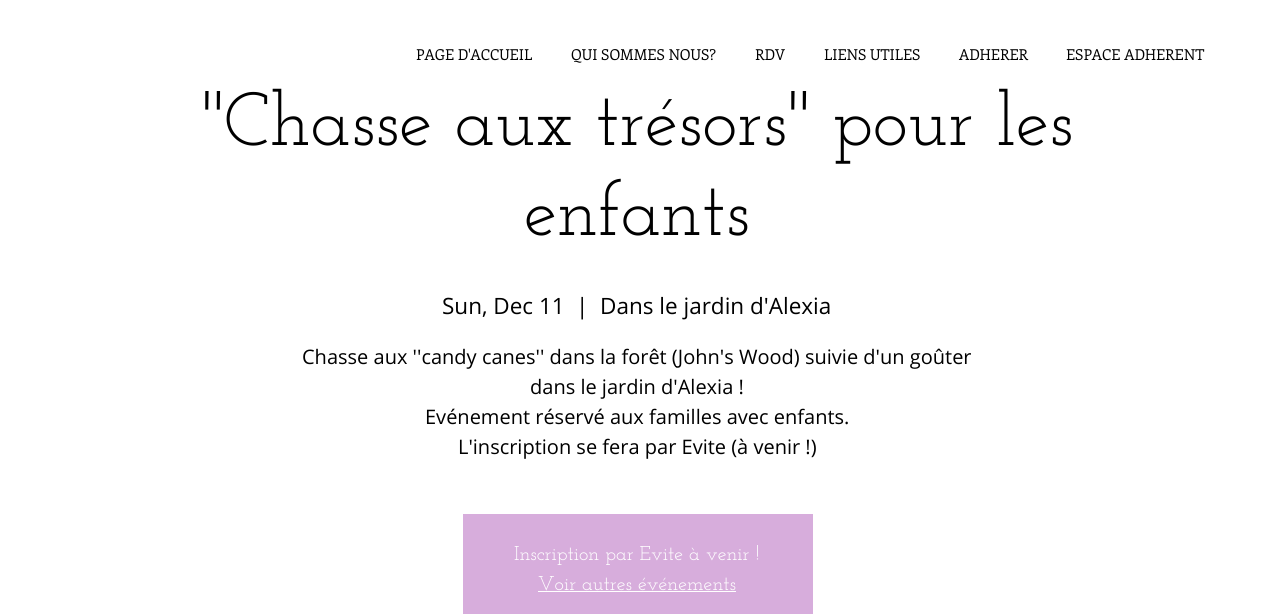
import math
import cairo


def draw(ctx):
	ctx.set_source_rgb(1, 1, 1)
	ctx.paint()
	ctx.select_font_face('Enriqueta')
	ctx.set_font_size(15)
	ctx.set_source_rgb(0, 0, 0)
	for x, y, s in [
		(416, 60, 'PAGE D\'ACCUEIL'),
		(571, 60, 'QUI SOMMES NOUS?'),
		(755, 60, 'RDV'),
		(824, 60, 'LIENS UTILES'),
		(959, 60, 'ADHERER'),
		(1066, 60, 'ESPACE ADHERENT'),
	]:
		ctx.move_to(x, y)
		ctx.show_text(s)
	ctx.select_font_face('Josefin Slab')
	ctx.set_font_size(75)
	ctx.move_to(201, 145)
	ctx.show_text('\'\'Chasse aux trésors\'\' pour les')
	ctx.move_to(524, 235)
	ctx.show_text('enfants')
	ctx.select_font_face('Open Sans')
	ctx.set_font_size(22.5)
	for x, y, s in [
		(442, 314, 'Sun, Dec 11'),
		(576, 314, '|'),
		(600, 314, 'Dans le jardin d\'Alexia'),
	]:
		ctx.move_to(x, y)
		ctx.show_text(s)
	ctx.set_font_size(20)
	for x, y, s in [
		(302, 364, 'Chasse aux \'\'candy canes\'\' dans la forêt (John\'s Wood) suivie d\'un goûter'),
		(530, 394, 'dans le jardin d\'Alexia !'),
		(425, 424, 'Evénement réservé aux familles avec enfants.'),
		(458, 454, 'L\'inscription se fera par Evite (à venir !)'),
	]:
		ctx.move_to(x, y)
		ctx.show_text(s)
	ctx.set_source_rgb(0.843, 0.678, 0.863)
	ctx.rectangle(463, 514, 350, 100)
	ctx.fill()
	ctx.select_font_face('Josefin Slab')
	ctx.set_source_rgb(1, 1, 1)
	ctx.move_to(514, 560)
	ctx.show_text('Inscription par Evite à venir !')
	ctx.move_to(538, 590)
	ctx.show_text('Voir autres événements')
	ctx.rectangle(538, 591, 198, 1)
	ctx.fill()


surface = cairo.ImageSurface(cairo.FORMAT_RGB24, 1273, 614)
ctx = cairo.Context(surface)
options = cairo.FontOptions()
options.set_hint_metrics(cairo.HINT_METRICS_OFF)
options.set_hint_style(cairo.HINT_STYLE_NONE)
ctx.set_font_options(options)
ctx.set_miter_limit(4)
draw(ctx)
surface.write_to_png('image.png')
